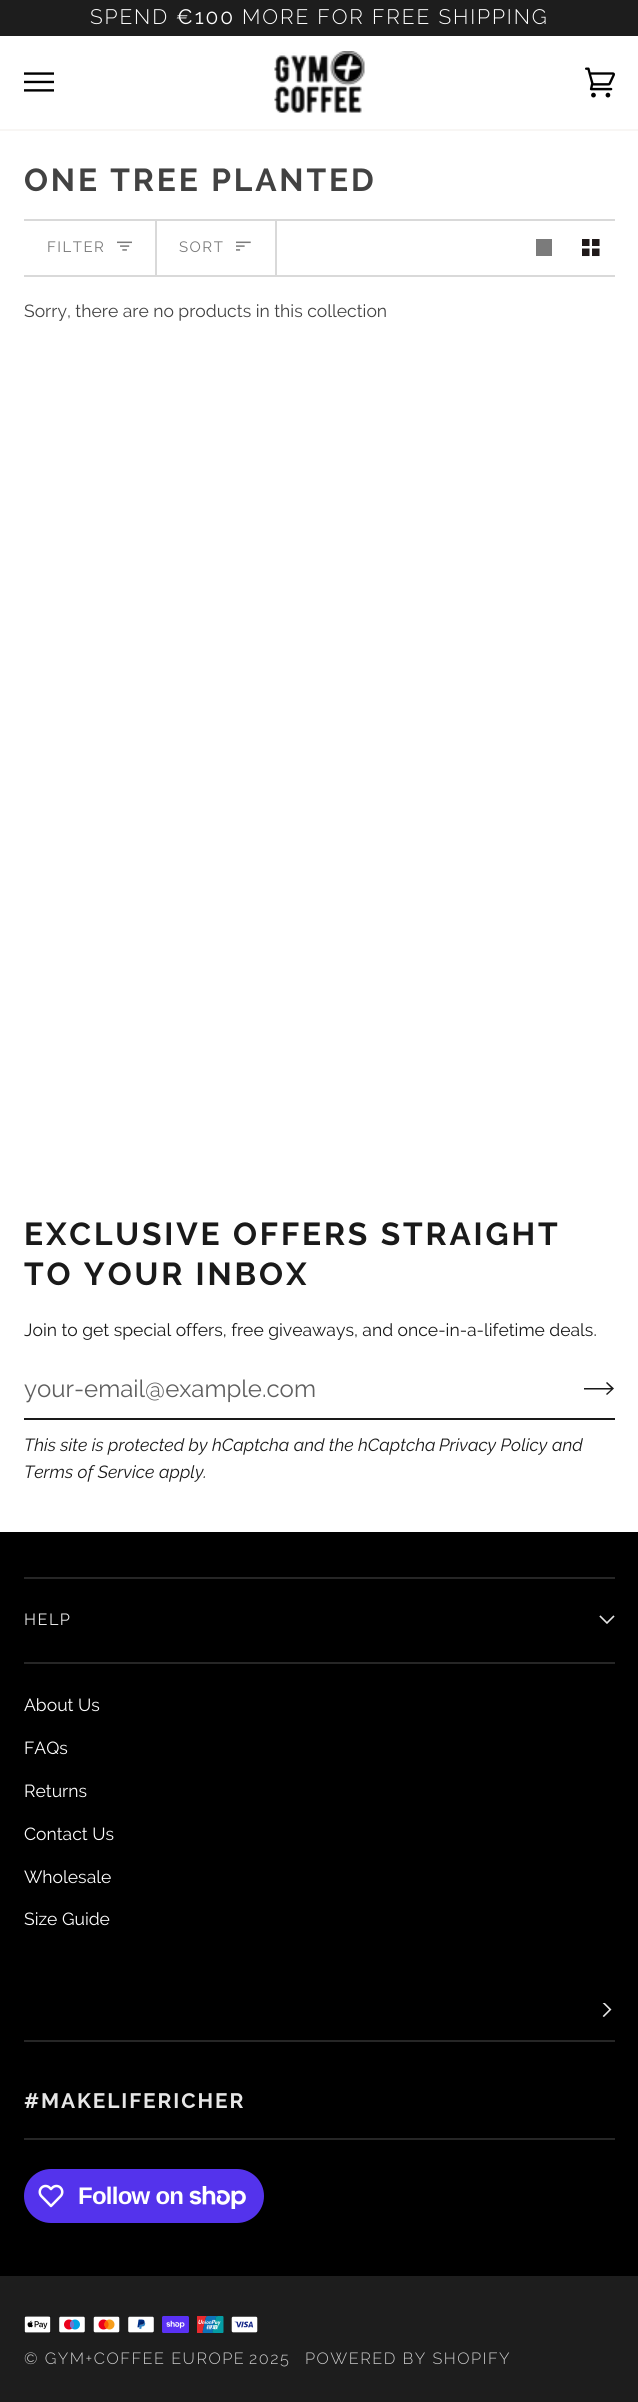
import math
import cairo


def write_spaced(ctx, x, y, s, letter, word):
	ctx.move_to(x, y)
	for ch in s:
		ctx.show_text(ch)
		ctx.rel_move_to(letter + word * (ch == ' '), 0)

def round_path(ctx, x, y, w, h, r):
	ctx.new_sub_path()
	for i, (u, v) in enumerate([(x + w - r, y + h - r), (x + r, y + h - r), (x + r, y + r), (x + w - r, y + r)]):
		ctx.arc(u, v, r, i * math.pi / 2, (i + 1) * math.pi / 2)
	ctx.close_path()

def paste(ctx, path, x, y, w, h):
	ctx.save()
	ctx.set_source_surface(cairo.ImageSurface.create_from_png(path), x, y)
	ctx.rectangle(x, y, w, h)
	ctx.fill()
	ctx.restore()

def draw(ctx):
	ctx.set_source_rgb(1, 1, 1)
	ctx.paint()
	ctx.set_source_rgb(0.114, 0.114, 0.114)
	ctx.rectangle(0, 0, 638, 36)
	ctx.fill()
	ctx.select_font_face('Raleway Light')
	ctx.set_font_size(20.9)
	ctx.set_source_rgb(1, 1, 1)
	write_spaced(ctx, 90, 24, 'SPEND', 1.9, 0)
	ctx.select_font_face('Raleway')
	write_spaced(ctx, 176, 24, '€100', 1.9, 0)
	ctx.select_font_face('Raleway Light')
	write_spaced(ctx, 242, 24, 'MORE FOR FREE SHIPPING', 1.9, 0)
	ctx.set_source_rgb(0.969, 0.961, 0.957)
	ctx.rectangle(0, 129, 638, 2)
	ctx.fill()
	paste(ctx, 'media/1.png', 24, 72, 30, 20)
	paste(ctx, 'media/2.png', 274, 51, 91, 62)
	paste(ctx, 'media/3.png', 585, 67, 30, 31)
	ctx.select_font_face('Raleway', cairo.FONT_SLANT_NORMAL, cairo.FONT_WEIGHT_BOLD)
	ctx.set_font_size(31.75)
	ctx.set_source_rgb(0.259, 0.259, 0.259)
	write_spaced(ctx, 24, 191, 'ONE TREE PLANTED', 2.85, 0)
	ctx.set_source_rgb(0.851, 0.851, 0.851)
	ctx.rectangle(24, 219, 591, 2)
	ctx.rectangle(24, 275, 591, 2)
	ctx.rectangle(155, 221, 2, 54)
	ctx.fill()
	ctx.select_font_face('Raleway')
	ctx.set_font_size(15)
	ctx.set_source_rgb(0.482, 0.482, 0.482)
	write_spaced(ctx, 47, 252, 'FILTER', 1.5, 0)
	paste(ctx, 'media/4.png', 117, 241, 15, 10)
	ctx.set_source_rgb(0.851, 0.851, 0.851)
	ctx.rectangle(275, 221, 2, 54)
	ctx.fill()
	ctx.set_source_rgb(0.482, 0.482, 0.482)
	write_spaced(ctx, 179, 252, 'SORT', 1.5, 0)
	paste(ctx, 'media/5.png', 236, 241, 15, 10)
	ctx.rectangle(536, 239, 16, 17)
	ctx.fill()
	paste(ctx, 'media/6.png', 582, 239, 18, 18)
	ctx.set_font_size(17.55)
	ctx.set_source_rgb(0.259, 0.259, 0.259)
	ctx.move_to(24, 317)
	ctx.show_text('Sorry, there are no products in this collection')
	ctx.set_source_rgb(0, 0, 0)
	ctx.rectangle(0, 1532, 638, 744)
	ctx.fill()
	ctx.select_font_face('Raleway', cairo.FONT_SLANT_NORMAL, cairo.FONT_WEIGHT_BOLD)
	ctx.set_font_size(31.75)
	ctx.set_source_rgb(0.102, 0.102, 0.102)
	write_spaced(ctx, 24, 1245, 'EXCLUSIVE OFFERS STRAIGHT', 2.85, 0)
	write_spaced(ctx, 24, 1285, 'TO YOUR INBOX', 2.85, 0)
	ctx.select_font_face('Raleway')
	ctx.set_font_size(17.55)
	ctx.move_to(24, 1336)
	ctx.show_text('Join to get special offers, free giveaways, and once-in-a-lifetime deals.')
	ctx.rectangle(24, 1418, 591, 2)
	ctx.fill()
	ctx.set_font_size(24)
	ctx.set_source_rgb(0.373, 0.373, 0.373)
	ctx.move_to(24, 1397)
	ctx.show_text('your-email@example.com')
	ctx.set_source_rgb(0.102, 0.102, 0.102)
	ctx.new_path()
	ctx.move_to(606, 1383)
	ctx.line_to(607, 1382)
	ctx.line_to(614, 1388.5)
	ctx.line_to(607, 1395)
	ctx.line_to(606, 1394)
	ctx.line_to(611, 1389.5)
	ctx.line_to(584, 1389.5)
	ctx.line_to(584, 1388)
	ctx.line_to(611, 1388)
	ctx.close_path()
	ctx.fill()
	ctx.select_font_face('Raleway', cairo.FONT_SLANT_ITALIC)
	ctx.set_font_size(17.55)
	for x, y, s in [
		(24, 1451, 'This site is protected by hCaptcha and the hCaptcha'),
		(439, 1451, 'Privacy Policy'),
		(552, 1451, 'and'),
		(24, 1478, 'Terms of Service'),
		(159, 1478, 'apply.'),
	]:
		ctx.move_to(x, y)
		ctx.show_text(s)
	ctx.set_source_rgb(0.149, 0.149, 0.149)
	ctx.rectangle(24, 1577, 591, 2)
	ctx.fill()
	ctx.rectangle(24, 1662, 591, 2)
	ctx.fill()
	ctx.select_font_face('Raleway')
	ctx.set_font_size(16.25)
	ctx.set_source_rgb(0.902, 0.902, 0.902)
	write_spaced(ctx, 24, 1625, 'HELP', 1.5, 0)
	paste(ctx, 'media/7.png', 599, 1615, 16, 9)
	ctx.set_font_size(17.55)
	ctx.set_source_rgb(1, 1, 1)
	for x, y, s in [
		(24, 1711, 'About Us'),
		(24, 1754, 'FAQs'),
		(24, 1797, 'Returns'),
		(24, 1840, 'Contact Us'),
		(24, 1883, 'Wholesale'),
		(24, 1925, 'Size Guide'),
	]:
		ctx.move_to(x, y)
		ctx.show_text(s)
	ctx.set_source_rgb(0.149, 0.149, 0.149)
	ctx.rectangle(24, 2040, 591, 2)
	ctx.fill()
	paste(ctx, 'media/8.png', 602, 2003, 10, 14)
	ctx.select_font_face('Raleway', cairo.FONT_SLANT_NORMAL, cairo.FONT_WEIGHT_BOLD)
	ctx.set_font_size(20.9)
	ctx.set_source_rgb(0.902, 0.902, 0.902)
	write_spaced(ctx, 24, 2108, '#MAKELIFERICHER', 1.9, 0)
	ctx.set_source_rgb(0.149, 0.149, 0.149)
	ctx.rectangle(24, 2138, 591, 2)
	ctx.fill()
	ctx.set_source_rgb(0.329, 0.2, 0.922)
	round_path(ctx, 24, 2169, 240, 54, 27)
	ctx.fill()
	paste(ctx, 'media/9.png', 38, 2184, 26, 24)
	ctx.select_font_face('Liberation Sans', cairo.FONT_SLANT_NORMAL, cairo.FONT_WEIGHT_BOLD)
	ctx.set_font_size(24)
	ctx.set_source_rgb(1, 1, 1)
	write_spaced(ctx, 78, 2204, 'Follow on', -0.75, 0)
	paste(ctx, 'media/10.png', 189, 2186, 57, 23)
	ctx.set_source_rgb(0.114, 0.114, 0.114)
	ctx.rectangle(0, 2276, 638, 126)
	ctx.fill()
	paste(ctx, 'media/11.png', 24, 2316, 27, 17)
	paste(ctx, 'media/12.png', 59, 2316, 26, 17)
	paste(ctx, 'media/13.png', 93, 2316, 27, 17)
	paste(ctx, 'media/14.png', 128, 2316, 26, 17)
	paste(ctx, 'media/15.png', 162, 2316, 27, 17)
	paste(ctx, 'media/16.png', 197, 2316, 27, 17)
	paste(ctx, 'media/17.png', 231, 2316, 27, 17)
	ctx.select_font_face('Raleway Light')
	ctx.set_font_size(16.25)
	ctx.set_source_rgb(0.8, 0.8, 0.8)
	for x, y, s in [
		(24, 2364, '© GYM+COFFEE EUROPE'),
		(249, 2364, '2025'),
		(305, 2364, 'POWERED BY SHOPIFY'),
	]:
		write_spaced(ctx, x, y, s, 1.5, 0)


surface = cairo.ImageSurface(cairo.FORMAT_RGB24, 638, 2402)
ctx = cairo.Context(surface)
options = cairo.FontOptions()
options.set_hint_metrics(cairo.HINT_METRICS_OFF)
options.set_hint_style(cairo.HINT_STYLE_NONE)
ctx.set_font_options(options)
ctx.set_miter_limit(4)
draw(ctx)
surface.write_to_png('image.png')
